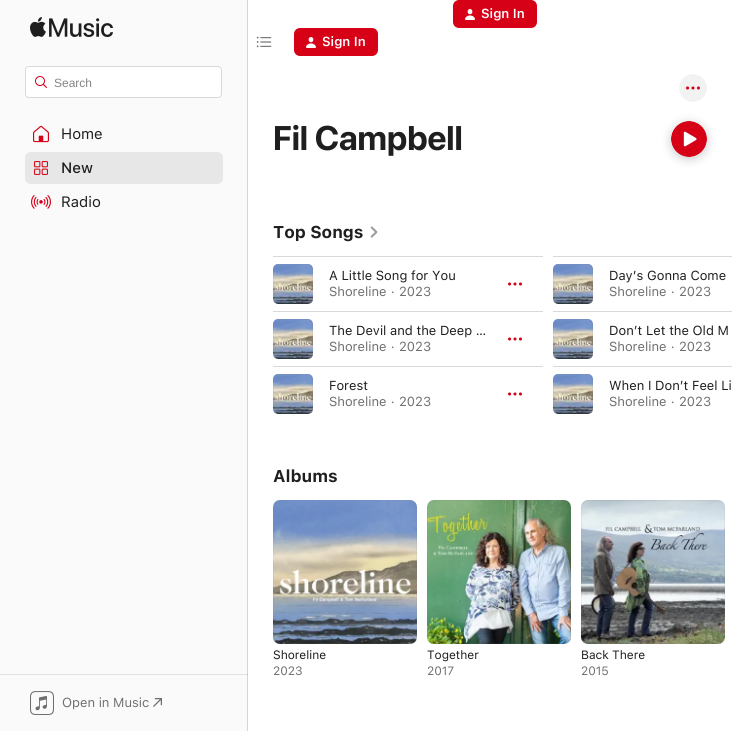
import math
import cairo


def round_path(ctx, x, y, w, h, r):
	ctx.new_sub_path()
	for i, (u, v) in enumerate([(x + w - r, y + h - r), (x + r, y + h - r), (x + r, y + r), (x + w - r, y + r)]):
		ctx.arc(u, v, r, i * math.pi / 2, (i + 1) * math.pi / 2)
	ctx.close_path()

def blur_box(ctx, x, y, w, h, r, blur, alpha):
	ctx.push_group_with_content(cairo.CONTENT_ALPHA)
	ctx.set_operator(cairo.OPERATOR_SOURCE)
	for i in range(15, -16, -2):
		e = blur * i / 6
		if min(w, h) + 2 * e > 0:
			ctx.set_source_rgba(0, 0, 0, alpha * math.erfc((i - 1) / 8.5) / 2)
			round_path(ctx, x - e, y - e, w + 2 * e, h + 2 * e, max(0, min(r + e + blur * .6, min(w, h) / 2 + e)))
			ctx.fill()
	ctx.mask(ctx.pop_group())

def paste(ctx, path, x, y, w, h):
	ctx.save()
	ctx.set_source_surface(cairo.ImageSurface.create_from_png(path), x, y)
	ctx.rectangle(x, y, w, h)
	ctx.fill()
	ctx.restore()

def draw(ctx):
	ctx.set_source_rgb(1, 1, 1)
	ctx.paint()
	ctx.set_source_rgb(0.839, 0, 0.09)
	round_path(ctx, 453, 0, 84, 28, 6)
	ctx.fill()
	paste(ctx, 'media/1.png', 465, 9, 10, 11)
	ctx.select_font_face('SF SemiBold')
	ctx.set_font_size(13)
	ctx.set_source_rgb(1, 1, 1)
	ctx.move_to(481, 18)
	ctx.show_text('Sign In')
	paste(ctx, 'media/2.png', 256, 36, 16, 12)
	ctx.set_source_rgb(0.839, 0, 0.09)
	round_path(ctx, 294, 28, 84, 28, 6)
	ctx.fill()
	paste(ctx, 'media/1.png', 306, 37, 10, 11)
	ctx.set_source_rgb(1, 1, 1)
	ctx.move_to(322, 46)
	ctx.show_text('Sign In')
	ctx.set_source_rgb(0.98, 0.98, 0.98)
	ctx.rectangle(0, 0, 247, 731)
	ctx.fill()
	ctx.set_source_rgb(0.882, 0.882, 0.882)
	ctx.rectangle(0, 674, 248, 1)
	ctx.fill()
	ctx.set_source_rgb(0.835, 0.835, 0.835)
	ctx.rectangle(247, 0, 1, 731)
	ctx.fill()
	ctx.set_source_rgb(0.753, 0.753, 0.753)
	ctx.rectangle(247, 674, 1, 1)
	ctx.fill()
	paste(ctx, 'media/3.png', 30, 17, 83, 20)
	ctx.set_source_rgb(1, 1, 1)
	round_path(ctx, 25.5, 66.5, 196, 31, 3.5)
	ctx.fill_preserve()
	ctx.set_source_rgb(0.851, 0.851, 0.851)
	ctx.set_line_width(1)
	ctx.stroke()
	paste(ctx, 'media/4.png', 35, 76, 12, 12)
	ctx.select_font_face('Liberation Sans')
	ctx.set_font_size(12)
	ctx.set_source_rgb(0.522, 0.522, 0.522)
	ctx.move_to(54, 87)
	ctx.show_text('Search')
	paste(ctx, 'media/5.png', 33, 125, 16, 18)
	ctx.select_font_face('SF')
	ctx.set_font_size(15)
	ctx.set_source_rgb(0.122, 0.122, 0.122)
	ctx.move_to(61, 139)
	ctx.show_text('Home')
	ctx.set_source_rgb(0.906, 0.906, 0.91)
	round_path(ctx, 25, 152, 198, 32, 6)
	ctx.fill()
	paste(ctx, 'media/6.png', 34, 161, 14, 14)
	ctx.select_font_face('SF Medium')
	ctx.set_source_rgb(0.122, 0.122, 0.122)
	ctx.move_to(61, 173)
	ctx.show_text('New')
	paste(ctx, 'media/7.png', 31, 195, 20, 14)
	ctx.select_font_face('SF')
	ctx.move_to(61, 207)
	ctx.show_text('Radio')
	paste(ctx, 'media/8.png', 30, 691, 24, 24)
	ctx.set_font_size(13)
	ctx.set_source_rgb(0.439, 0.439, 0.439)
	ctx.move_to(62, 707)
	ctx.show_text('Open in Music')
	paste(ctx, 'media/9.png', 153, 698, 9, 9)
	paste(ctx, 'media/10.png', 679, 74, 28, 28)
	ctx.select_font_face('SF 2', cairo.FONT_SLANT_NORMAL, cairo.FONT_WEIGHT_BOLD)
	ctx.set_font_size(34)
	ctx.set_source_rgb(0.122, 0.122, 0.122)
	ctx.move_to(273, 150)
	ctx.show_text('Fil Campbell')
	ctx.set_source_rgb(0, 0, 0)
	blur_box(ctx, 671, 123, 36, 36, 18, 5, 0.2)
	paste(ctx, 'media/11.png', 671, 121, 36, 36)
	ctx.select_font_face('SF', cairo.FONT_SLANT_NORMAL, cairo.FONT_WEIGHT_BOLD)
	ctx.set_font_size(17)
	ctx.set_source_rgb(0.122, 0.122, 0.122)
	ctx.move_to(273, 238)
	ctx.show_text('Top Songs')
	paste(ctx, 'media/12.png', 370, 226, 8, 12)
	ctx.set_source_rgb(0.851, 0.851, 0.851)
	ctx.rectangle(273, 256, 270, 1)
	ctx.fill()
	paste(ctx, 'media/13.png', 273, 264, 40, 40)
	round_path(ctx, 273.5, 264.5, 39, 39, 4.5)
	ctx.set_source_rgba(0.502, 0.502, 0.502, 0.1)
	ctx.stroke()
	ctx.select_font_face('SF')
	ctx.set_font_size(13)
	ctx.set_source_rgb(0.122, 0.122, 0.122)
	ctx.move_to(329, 280)
	ctx.show_text('A Little Song for You')
	ctx.set_source_rgb(0.439, 0.439, 0.439)
	ctx.move_to(329, 296)
	ctx.show_text('Shoreline · 2023')
	paste(ctx, 'media/14.png', 508, 282, 14, 4)
	ctx.set_source_rgb(0.851, 0.851, 0.851)
	ctx.rectangle(553, 256, 179, 1)
	ctx.fill()
	paste(ctx, 'media/15.png', 553, 264, 40, 40)
	round_path(ctx, 553.5, 264.5, 39, 39, 4.5)
	ctx.set_source_rgba(0.502, 0.502, 0.502, 0.1)
	ctx.stroke()
	ctx.set_source_rgb(0.122, 0.122, 0.122)
	ctx.move_to(609, 280)
	ctx.show_text('Day’s Gonna Come')
	ctx.set_source_rgb(0.439, 0.439, 0.439)
	ctx.move_to(609, 296)
	ctx.show_text('Shoreline · 2023')
	ctx.set_source_rgb(0.851, 0.851, 0.851)
	ctx.rectangle(273, 311, 270, 1)
	ctx.fill()
	paste(ctx, 'media/13.png', 273, 319, 40, 40)
	round_path(ctx, 273.5, 319.5, 39, 39, 4.5)
	ctx.set_source_rgba(0.502, 0.502, 0.502, 0.1)
	ctx.stroke()
	ctx.set_source_rgb(0.122, 0.122, 0.122)
	ctx.move_to(329, 335)
	ctx.show_text('The Devil and the Deep …')
	ctx.set_source_rgb(0.439, 0.439, 0.439)
	ctx.move_to(329, 351)
	ctx.show_text('Shoreline · 2023')
	paste(ctx, 'media/14.png', 508, 337, 14, 4)
	ctx.set_source_rgb(0.851, 0.851, 0.851)
	ctx.rectangle(553, 311, 179, 1)
	ctx.fill()
	paste(ctx, 'media/15.png', 553, 319, 40, 40)
	round_path(ctx, 553.5, 319.5, 39, 39, 4.5)
	ctx.set_source_rgba(0.502, 0.502, 0.502, 0.1)
	ctx.stroke()
	ctx.set_source_rgb(0.122, 0.122, 0.122)
	ctx.move_to(609, 335)
	ctx.show_text('Don’t Let the Old M')
	ctx.set_source_rgb(0.439, 0.439, 0.439)
	ctx.move_to(609, 351)
	ctx.show_text('Shoreline · 2023')
	ctx.set_source_rgb(0.851, 0.851, 0.851)
	ctx.rectangle(273, 366, 270, 1)
	ctx.fill()
	paste(ctx, 'media/13.png', 273, 374, 40, 40)
	round_path(ctx, 273.5, 374.5, 39, 39, 4.5)
	ctx.set_source_rgba(0.502, 0.502, 0.502, 0.1)
	ctx.stroke()
	ctx.set_source_rgb(0.122, 0.122, 0.122)
	ctx.move_to(329, 390)
	ctx.show_text('Forest')
	ctx.set_source_rgb(0.439, 0.439, 0.439)
	ctx.move_to(329, 406)
	ctx.show_text('Shoreline · 2023')
	paste(ctx, 'media/14.png', 508, 392, 14, 4)
	ctx.set_source_rgb(0.851, 0.851, 0.851)
	ctx.rectangle(553, 366, 179, 1)
	ctx.fill()
	paste(ctx, 'media/15.png', 553, 374, 40, 40)
	round_path(ctx, 553.5, 374.5, 39, 39, 4.5)
	ctx.set_source_rgba(0.502, 0.502, 0.502, 0.1)
	ctx.stroke()
	ctx.set_source_rgb(0.122, 0.122, 0.122)
	ctx.move_to(609, 390)
	ctx.show_text('When I Don’t Feel Li')
	ctx.set_source_rgb(0.439, 0.439, 0.439)
	ctx.move_to(609, 406)
	ctx.show_text('Shoreline · 2023')
	ctx.select_font_face('SF', cairo.FONT_SLANT_NORMAL, cairo.FONT_WEIGHT_BOLD)
	ctx.set_font_size(17)
	ctx.set_source_rgb(0.122, 0.122, 0.122)
	ctx.move_to(273, 482)
	ctx.show_text('Albums')
	paste(ctx, 'media/16.png', 273, 500, 144, 144)
	round_path(ctx, 273.5, 500.5, 143, 143, 6.5)
	ctx.set_source_rgba(0.502, 0.502, 0.502, 0.1)
	ctx.stroke()
	ctx.select_font_face('SF')
	ctx.set_font_size(12)
	ctx.set_source_rgb(0.122, 0.122, 0.122)
	ctx.move_to(273, 659)
	ctx.show_text('Shoreline')
	ctx.set_source_rgb(0.439, 0.439, 0.439)
	ctx.move_to(273, 675)
	ctx.show_text('2023')
	paste(ctx, 'media/17.png', 427, 500, 144, 144)
	round_path(ctx, 427.5, 500.5, 143, 143, 6.5)
	ctx.set_source_rgba(0.502, 0.502, 0.502, 0.1)
	ctx.stroke()
	ctx.set_source_rgb(0.122, 0.122, 0.122)
	ctx.move_to(427, 659)
	ctx.show_text('Together')
	ctx.set_source_rgb(0.439, 0.439, 0.439)
	ctx.move_to(427, 675)
	ctx.show_text('2017')
	paste(ctx, 'media/18.png', 581, 500, 144, 144)
	round_path(ctx, 581.5, 500.5, 143, 143, 6.5)
	ctx.set_source_rgba(0.502, 0.502, 0.502, 0.1)
	ctx.stroke()
	ctx.set_source_rgb(0.122, 0.122, 0.122)
	ctx.move_to(581, 659)
	ctx.show_text('Back There')
	ctx.set_source_rgb(0.439, 0.439, 0.439)
	ctx.move_to(581, 675)
	ctx.show_text('2015')


surface = cairo.ImageSurface(cairo.FORMAT_RGB24, 732, 731)
ctx = cairo.Context(surface)
options = cairo.FontOptions()
options.set_hint_metrics(cairo.HINT_METRICS_OFF)
options.set_hint_style(cairo.HINT_STYLE_NONE)
ctx.set_font_options(options)
ctx.set_miter_limit(4)
draw(ctx)
surface.write_to_png('image.png')
